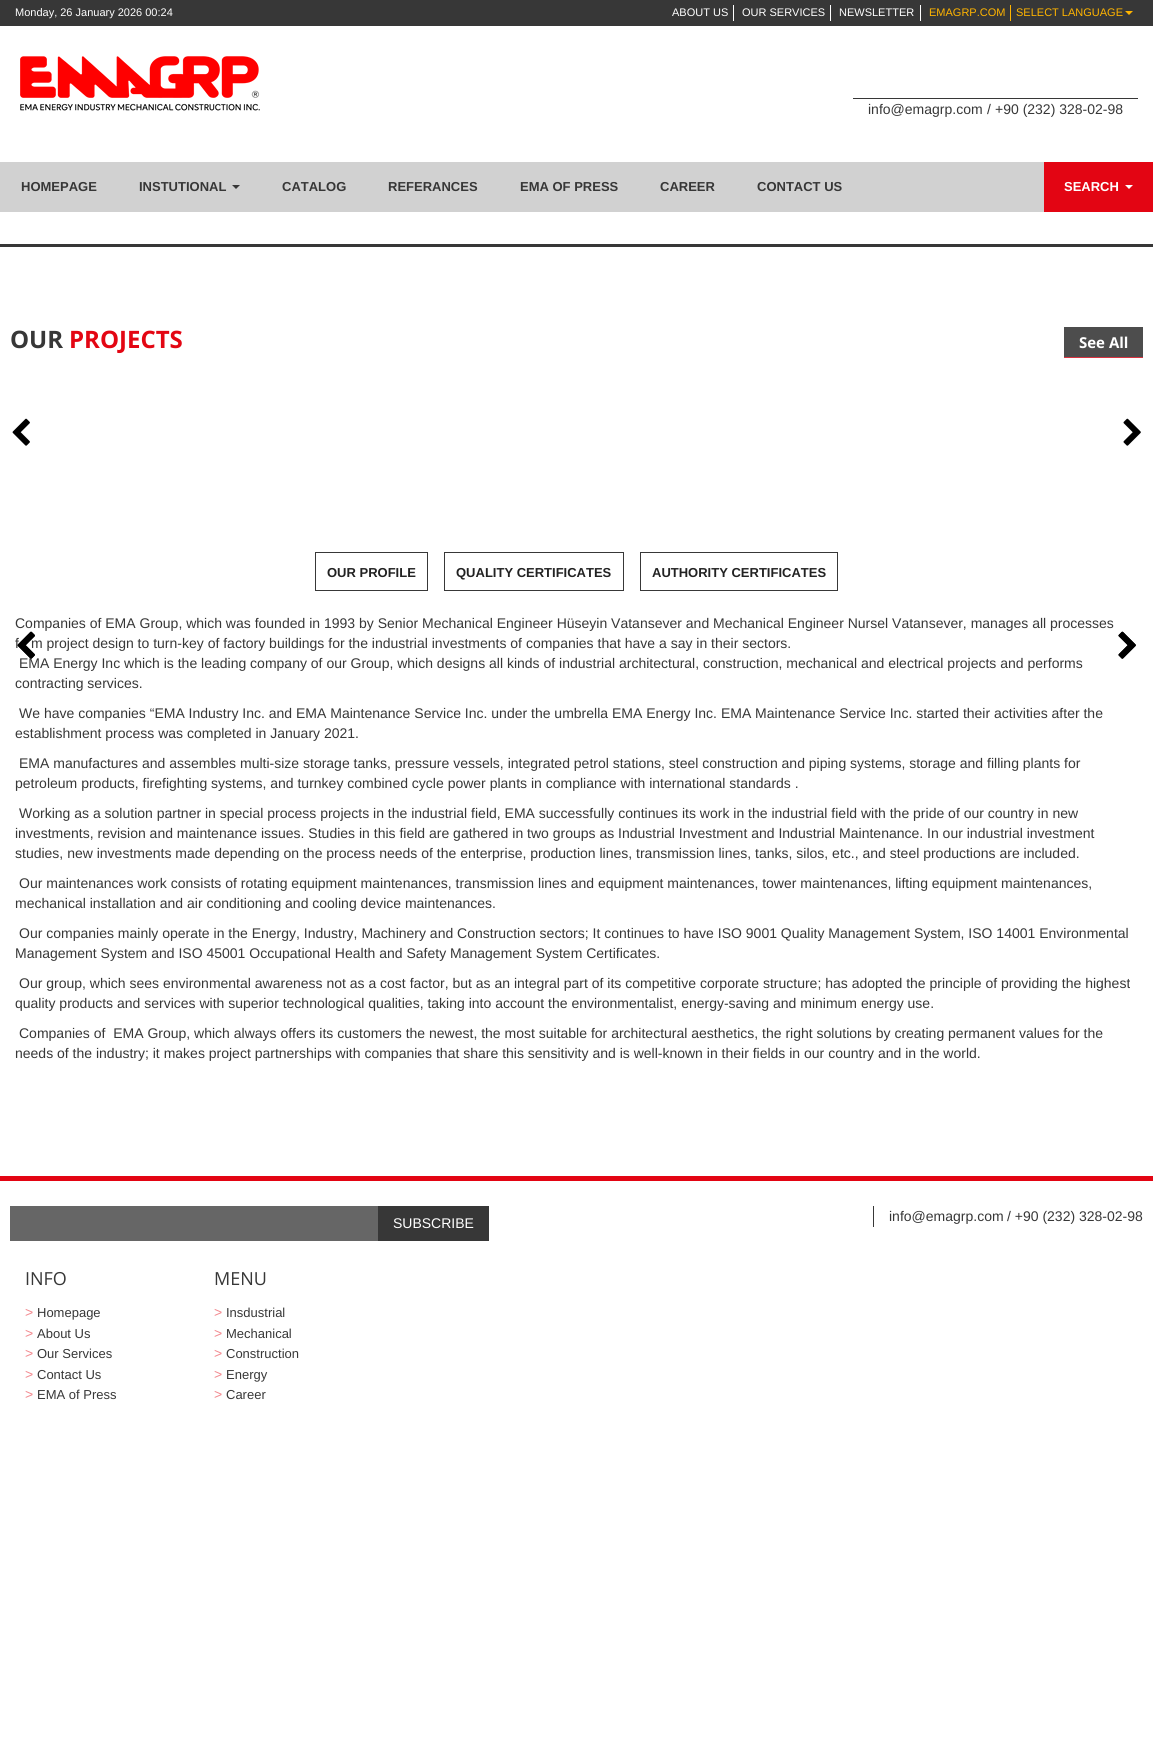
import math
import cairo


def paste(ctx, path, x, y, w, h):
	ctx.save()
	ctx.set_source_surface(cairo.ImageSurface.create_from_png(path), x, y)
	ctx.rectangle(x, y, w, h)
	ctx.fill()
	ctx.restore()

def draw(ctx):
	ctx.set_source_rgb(1, 1, 1)
	ctx.paint()
	ctx.set_source_rgb(0.216, 0.216, 0.216)
	ctx.rectangle(0, 0, 1153, 26)
	ctx.fill()
	ctx.select_font_face('Liberation Sans')
	ctx.set_font_size(11)
	ctx.set_source_rgb(1, 1, 1)
	ctx.move_to(15, 16)
	ctx.show_text('Monday, 26 January 2026 00:24')
	ctx.rectangle(733, 5, 1, 16)
	ctx.fill()
	ctx.move_to(672, 16)
	ctx.show_text('ABOUT US')
	ctx.rectangle(830, 5, 1, 16)
	ctx.fill()
	ctx.move_to(742, 16)
	ctx.show_text('OUR SERVICES')
	ctx.rectangle(920, 5, 1, 16)
	ctx.fill()
	ctx.move_to(839, 16)
	ctx.show_text('NEWSLETTER')
	ctx.set_source_rgb(1, 0.706, 0)
	ctx.rectangle(1010, 5, 1, 16)
	ctx.fill()
	ctx.move_to(929, 16)
	ctx.show_text('EMAGRP.COM')
	ctx.move_to(1016, 16)
	ctx.show_text('SELECT LANGUAGE')
	ctx.new_path()
	ctx.move_to(1125, 11)
	ctx.line_to(1133, 11)
	ctx.line_to(1129, 15)
	ctx.close_path()
	ctx.fill()
	paste(ctx, 'media/1.png', 20, 56, 240, 55)
	ctx.set_source_rgb(0.216, 0.216, 0.216)
	ctx.rectangle(853, 98, 285, 1)
	ctx.fill()
	ctx.set_font_size(14)
	for x, y, s in [
		(868, 114, 'info@emagrp.com'),
		(987, 114, '/'),
		(995, 114, '+90 (232) 328-02-98'),
	]:
		ctx.move_to(x, y)
		ctx.show_text(s)
	ctx.set_source_rgb(0.82, 0.82, 0.82)
	ctx.rectangle(0, 162, 1044, 50)
	ctx.fill()
	ctx.select_font_face('Liberation Sans', cairo.FONT_SLANT_NORMAL, cairo.FONT_WEIGHT_BOLD)
	ctx.set_font_size(13)
	ctx.set_source_rgb(0.216, 0.216, 0.216)
	ctx.move_to(21, 191)
	ctx.show_text('HOMEPAGE')
	ctx.move_to(139, 191)
	ctx.show_text('INSTUTIONAL')
	ctx.new_path()
	ctx.move_to(232, 185)
	ctx.line_to(240, 185)
	ctx.line_to(236, 189)
	ctx.close_path()
	ctx.fill()
	for x, y, s in [
		(282, 191, 'CATALOG'),
		(388, 191, 'REFERANCES'),
		(520, 191, 'EMA OF PRESS'),
		(660, 191, 'CAREER'),
		(757, 191, 'CONTACT US'),
	]:
		ctx.move_to(x, y)
		ctx.show_text(s)
	ctx.set_source_rgb(0.89, 0.02, 0.075)
	ctx.rectangle(1044, 162, 109, 50)
	ctx.fill()
	ctx.set_source_rgb(1, 1, 1)
	ctx.move_to(1064, 191)
	ctx.show_text('SEARCH')
	ctx.new_path()
	ctx.move_to(1125, 185)
	ctx.line_to(1133, 185)
	ctx.line_to(1129, 189)
	ctx.close_path()
	ctx.fill()
	ctx.set_source_rgb(0.216, 0.216, 0.216)
	ctx.rectangle(0, 244, 1153, 3)
	ctx.fill()
	ctx.select_font_face('Open Sans', cairo.FONT_SLANT_NORMAL, cairo.FONT_WEIGHT_BOLD)
	ctx.set_font_size(24)
	ctx.move_to(10, 348)
	ctx.show_text('OUR')
	ctx.set_source_rgb(0.89, 0.024, 0.075)
	ctx.move_to(69, 348)
	ctx.show_text('PROJECTS')
	ctx.set_source_rgb(0.302, 0.302, 0.302)
	ctx.rectangle(1064, 327, 79, 30)
	ctx.fill()
	ctx.set_font_size(15)
	ctx.set_source_rgb(1, 1, 1)
	ctx.move_to(1079, 348)
	ctx.show_text('See All')
	ctx.set_source_rgb(0.847, 0.2, 0.251)
	ctx.rectangle(1064, 357, 79, 1)
	ctx.fill()
	paste(ctx, 'media/2.png', 12, 418, 18, 28)
	paste(ctx, 'media/3.png', 1123, 418, 18, 28)
	ctx.rectangle(315.5, 552.5, 112, 38)
	ctx.set_source_rgb(0.22, 0.22, 0.22)
	ctx.set_line_width(1)
	ctx.stroke()
	ctx.select_font_face('Liberation Sans', cairo.FONT_SLANT_NORMAL, cairo.FONT_WEIGHT_BOLD)
	ctx.set_font_size(13)
	ctx.set_source_rgb(0.133, 0.133, 0.133)
	ctx.move_to(327, 577)
	ctx.show_text('OUR PROFILE')
	ctx.rectangle(444.5, 552.5, 179, 38)
	ctx.set_source_rgb(0.22, 0.22, 0.22)
	ctx.stroke()
	ctx.set_source_rgb(0.133, 0.133, 0.133)
	ctx.move_to(456, 577)
	ctx.show_text('QUALITY CERTIFICATES')
	ctx.rectangle(640.5, 552.5, 197, 38)
	ctx.set_source_rgb(0.22, 0.22, 0.22)
	ctx.stroke()
	ctx.set_source_rgb(0.133, 0.133, 0.133)
	ctx.move_to(652, 577)
	ctx.show_text('AUTHORITY CERTIFICATES')
	ctx.select_font_face('Liberation Sans')
	ctx.set_font_size(14)
	ctx.set_source_rgb(0.216, 0.216, 0.216)
	for x, y, s in [
		(15, 628, 'Companies of EMA Group, which was founded in 1993 by Senior Mechanical Engineer Hüseyin Vatansever and Mechanical Engineer Nursel Vatansever, manages all processes'),
		(15, 648, 'f'),
		(31, 648, 'm project design to turn-key of factory buildings for the industrial investments of companies that have a say in their sectors.'),
		(19, 668, 'EMA Energy Inc which is the leading company of our Group, which designs all kinds of industrial architectural, construction, mechanical and electrical projects and performs'),
		(15, 688, 'contracting services.'),
		(19, 718, 'We have companies “EMA Industry Inc. and EMA Maintenance Service Inc. under the umbrella EMA Energy Inc. EMA Maintenance Service Inc. started their activities after the'),
		(15, 738, 'establishment process was completed in January 2021.'),
		(19, 768, 'EMA manufactures and assembles multi-size storage tanks, pressure vessels, integrated petrol stations, steel construction and piping systems, storage and filling plants for'),
		(15, 788, 'petroleum products, firefighting systems, and turnkey combined cycle power plants in compliance with international standards .'),
		(19, 818, 'Working as a solution partner in special process projects in the industrial field, EMA successfully continues its work in the industrial field with the pride of our country in new'),
		(15, 838, 'investments, revision and maintenance issues. Studies in this field are gathered in two groups as Industrial Investment and Industrial Maintenance. In our industrial investment'),
		(15, 858, 'studies, new investments made depending on the process needs of the enterprise, production lines, transmission lines, tanks, silos, etc., and steel productions are included.'),
		(19, 888, 'Our maintenances work consists of rotating equipment maintenances, transmission lines and equipment maintenances, tower maintenances, lifting equipment maintenances,'),
		(15, 908, 'mechanical installation and air conditioning and cooling device maintenances.'),
		(19, 938, 'Our companies mainly operate in the Energy, Industry, Machinery and Construction sectors; It continues to have ISO 9001 Quality Management System, ISO 14001 Environmental'),
		(15, 958, 'Management System and ISO 45001 Occupational Health and Safety Management System Certificates.'),
		(19, 988, 'Our group, which sees environmental awareness not as a cost factor, but as an integral part of its competitive corporate structure; has adopted the principle of providing the highest'),
		(15, 1008, 'quality products and services with superior technological qualities, taking into account the environmentalist, energy-saving and minimum energy use.'),
		(19, 1038, 'Companies of  EMA Group, which always offers its customers the newest, the most suitable for architectural aesthetics, the right solutions by creating permanent values for the'),
		(15, 1058, 'needs of the industry; it makes project partnerships with companies that share this sensitivity and is well-known in their fields in our country and in the world.'),
	]:
		ctx.move_to(x, y)
		ctx.show_text(s)
	paste(ctx, 'media/4.png', 17, 631, 18, 28)
	paste(ctx, 'media/3.png', 1118, 631, 18, 28)
	paste(ctx, 'media/5.png', 17, 631, 18, 28)
	paste(ctx, 'media/6.png', 1118, 631, 18, 28)
	ctx.set_source_rgb(0.89, 0.02, 0.075)
	ctx.rectangle(0, 1176, 1153, 5)
	ctx.fill()
	ctx.set_source_rgb(0.4, 0.4, 0.4)
	ctx.rectangle(10, 1206, 368, 35)
	ctx.fill()
	ctx.set_source_rgb(0.216, 0.216, 0.216)
	ctx.rectangle(378, 1206, 111, 35)
	ctx.fill()
	ctx.set_source_rgb(1, 1, 1)
	ctx.move_to(393, 1228)
	ctx.show_text('SUBSCRIBE')
	ctx.set_source_rgb(0.22, 0.22, 0.22)
	ctx.rectangle(873, 1206, 1, 21)
	ctx.fill()
	ctx.set_source_rgb(0.216, 0.216, 0.216)
	ctx.move_to(889, 1221)
	ctx.show_text('info@emagrp.com')
	ctx.move_to(1007, 1221)
	ctx.show_text('/ +90 (232) 328-02-98')
	ctx.select_font_face('Open Sans')
	ctx.set_font_size(18)
	ctx.move_to(25, 1285)
	ctx.show_text('INFO')
	ctx.select_font_face('Liberation Sans')
	ctx.set_font_size(14)
	ctx.set_source_rgb(0.949, 0.533, 0.557)
	ctx.move_to(25, 1317)
	ctx.show_text('>')
	ctx.set_font_size(13)
	ctx.set_source_rgb(0.216, 0.216, 0.216)
	ctx.move_to(37, 1317)
	ctx.show_text('Homepage')
	ctx.set_font_size(14)
	ctx.set_source_rgb(0.949, 0.533, 0.557)
	ctx.move_to(25, 1338)
	ctx.show_text('>')
	ctx.set_font_size(13)
	ctx.set_source_rgb(0.216, 0.216, 0.216)
	ctx.move_to(37, 1338)
	ctx.show_text('About Us')
	ctx.set_font_size(14)
	ctx.set_source_rgb(0.949, 0.533, 0.557)
	ctx.move_to(25, 1358)
	ctx.show_text('>')
	ctx.set_font_size(13)
	ctx.set_source_rgb(0.216, 0.216, 0.216)
	ctx.move_to(37, 1358)
	ctx.show_text('Our Services')
	ctx.set_font_size(14)
	ctx.set_source_rgb(0.949, 0.533, 0.557)
	ctx.move_to(25, 1379)
	ctx.show_text('>')
	ctx.set_font_size(13)
	ctx.set_source_rgb(0.216, 0.216, 0.216)
	ctx.move_to(37, 1379)
	ctx.show_text('Contact Us')
	ctx.set_font_size(14)
	ctx.set_source_rgb(0.949, 0.533, 0.557)
	ctx.move_to(25, 1399)
	ctx.show_text('>')
	ctx.set_font_size(13)
	ctx.set_source_rgb(0.216, 0.216, 0.216)
	ctx.move_to(37, 1399)
	ctx.show_text('EMA of Press')
	ctx.select_font_face('Open Sans')
	ctx.set_font_size(18)
	ctx.move_to(214, 1285)
	ctx.show_text('MENU')
	ctx.select_font_face('Liberation Sans')
	ctx.set_font_size(14)
	ctx.set_source_rgb(0.949, 0.533, 0.557)
	ctx.move_to(214, 1317)
	ctx.show_text('>')
	ctx.set_font_size(13)
	ctx.set_source_rgb(0.216, 0.216, 0.216)
	ctx.move_to(226, 1317)
	ctx.show_text('Insdustrial')
	ctx.set_font_size(14)
	ctx.set_source_rgb(0.949, 0.533, 0.557)
	ctx.move_to(214, 1338)
	ctx.show_text('>')
	ctx.set_font_size(13)
	ctx.set_source_rgb(0.216, 0.216, 0.216)
	ctx.move_to(226, 1338)
	ctx.show_text('Mechanical')
	ctx.set_font_size(14)
	ctx.set_source_rgb(0.949, 0.533, 0.557)
	ctx.move_to(214, 1358)
	ctx.show_text('>')
	ctx.set_font_size(13)
	ctx.set_source_rgb(0.216, 0.216, 0.216)
	ctx.move_to(226, 1358)
	ctx.show_text('Construction')
	ctx.set_font_size(14)
	ctx.set_source_rgb(0.949, 0.533, 0.557)
	ctx.move_to(214, 1379)
	ctx.show_text('>')
	ctx.set_font_size(13)
	ctx.set_source_rgb(0.216, 0.216, 0.216)
	ctx.move_to(226, 1379)
	ctx.show_text('Energy')
	ctx.set_font_size(14)
	ctx.set_source_rgb(0.949, 0.533, 0.557)
	ctx.move_to(214, 1399)
	ctx.show_text('>')
	ctx.set_font_size(13)
	ctx.set_source_rgb(0.216, 0.216, 0.216)
	ctx.move_to(226, 1399)
	ctx.show_text('Career')


surface = cairo.ImageSurface(cairo.FORMAT_RGB24, 1153, 1742)
ctx = cairo.Context(surface)
options = cairo.FontOptions()
options.set_hint_metrics(cairo.HINT_METRICS_OFF)
options.set_hint_style(cairo.HINT_STYLE_NONE)
ctx.set_font_options(options)
ctx.set_miter_limit(4)
draw(ctx)
surface.write_to_png('image.png')
